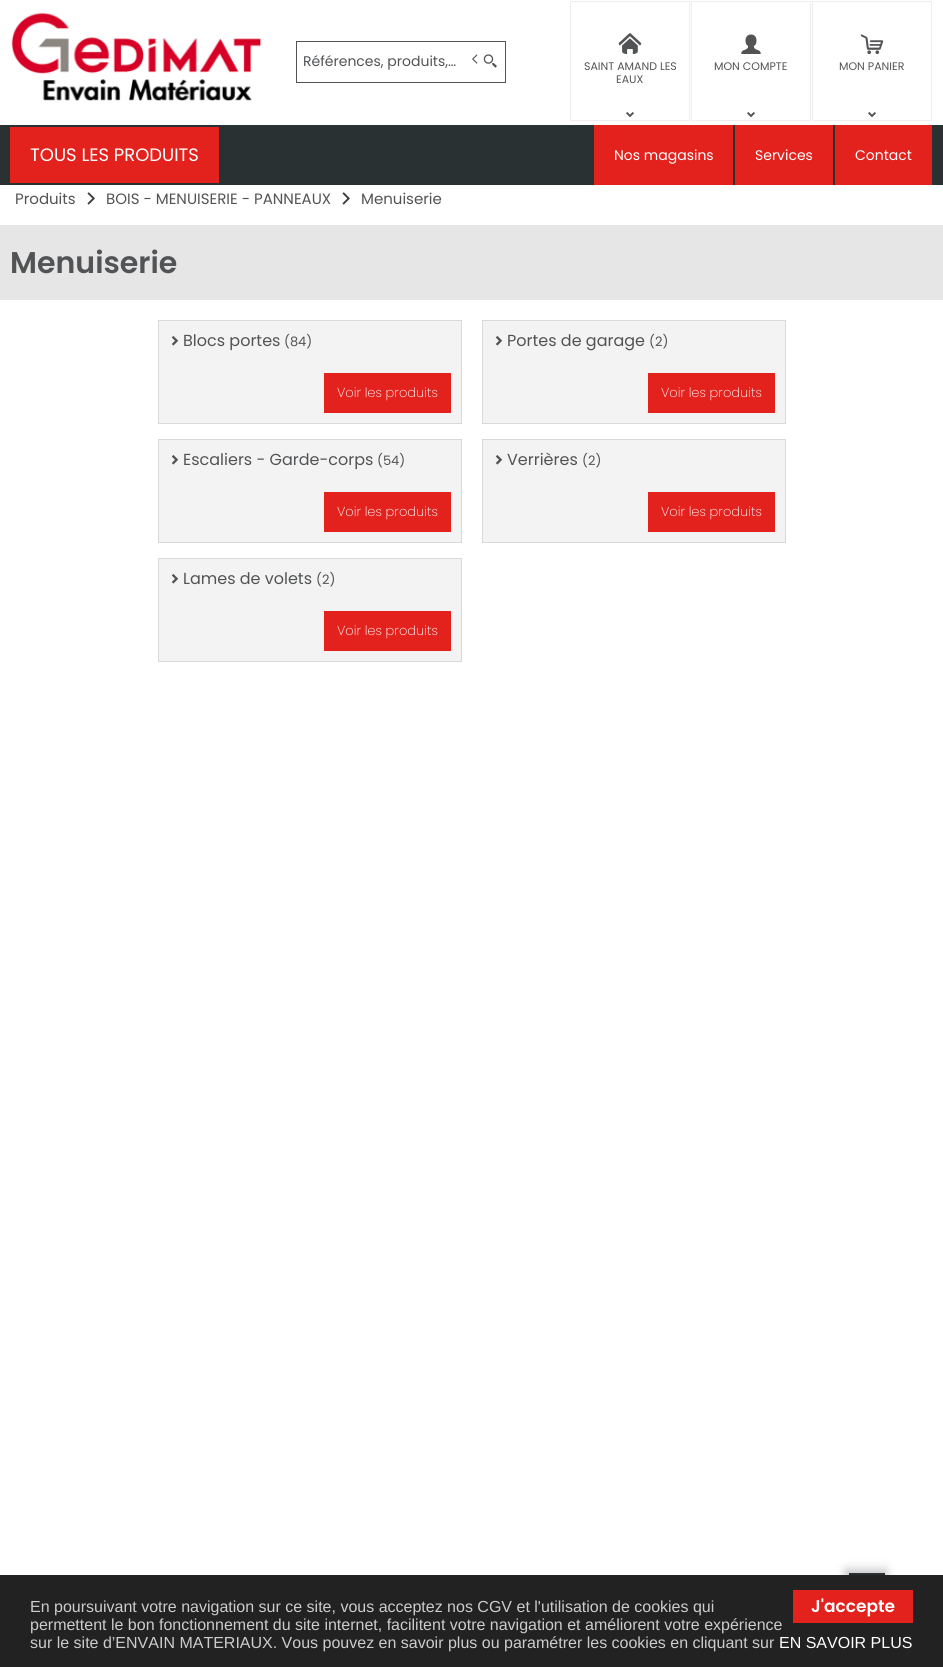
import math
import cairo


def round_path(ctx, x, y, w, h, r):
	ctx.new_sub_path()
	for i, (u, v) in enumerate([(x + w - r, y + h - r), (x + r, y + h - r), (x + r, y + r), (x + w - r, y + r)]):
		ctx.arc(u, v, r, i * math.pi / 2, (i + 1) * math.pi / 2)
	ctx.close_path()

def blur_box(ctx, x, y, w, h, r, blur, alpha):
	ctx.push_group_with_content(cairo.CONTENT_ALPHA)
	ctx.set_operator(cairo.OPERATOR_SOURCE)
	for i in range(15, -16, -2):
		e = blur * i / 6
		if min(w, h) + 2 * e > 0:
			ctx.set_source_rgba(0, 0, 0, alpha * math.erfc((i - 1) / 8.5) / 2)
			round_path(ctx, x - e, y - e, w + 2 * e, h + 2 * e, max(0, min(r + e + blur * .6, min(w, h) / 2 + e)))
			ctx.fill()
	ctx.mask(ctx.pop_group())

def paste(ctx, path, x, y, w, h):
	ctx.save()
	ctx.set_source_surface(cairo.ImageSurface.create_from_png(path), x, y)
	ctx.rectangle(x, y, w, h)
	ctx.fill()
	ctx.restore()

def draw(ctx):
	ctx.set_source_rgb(1, 1, 1)
	ctx.paint()
	paste(ctx, 'media/1.png', 11, 12, 251, 89)
	ctx.rectangle(296.5, 41.5, 209, 41)
	ctx.set_source_rgb(0.322, 0.325, 0.333)
	ctx.set_line_width(1)
	ctx.stroke()
	ctx.select_font_face('Poppins')
	ctx.set_font_size(14)
	ctx.move_to(303, 66)
	ctx.show_text('Références, produits,…')
	paste(ctx, 'media/2.png', 472, 54, 25, 14)
	ctx.rectangle(570.5, 1.5, 119, 119)
	ctx.set_source_rgb(0.933, 0.933, 0.933)
	ctx.stroke()
	paste(ctx, 'media/3.png', 618, 33, 24, 22)
	ctx.set_font_size(11)
	ctx.set_source_rgb(0.322, 0.325, 0.333)
	ctx.move_to(584, 70)
	ctx.show_text('SAINT AMAND LES')
	ctx.move_to(616, 83)
	ctx.show_text('EAUX')
	paste(ctx, 'media/4.png', 626, 112, 8, 6)
	ctx.rectangle(691.5, 1.5, 119, 119)
	ctx.set_source_rgb(0.933, 0.933, 0.933)
	ctx.stroke()
	paste(ctx, 'media/5.png', 741, 34, 20, 20)
	ctx.set_source_rgb(0.322, 0.325, 0.333)
	ctx.move_to(714, 70)
	ctx.show_text('MON COMPTE')
	paste(ctx, 'media/4.png', 747, 112, 8, 6)
	ctx.rectangle(812.5, 1.5, 119, 119)
	ctx.set_source_rgb(0.933, 0.933, 0.933)
	ctx.stroke()
	paste(ctx, 'media/6.png', 860, 34, 24, 21)
	ctx.set_source_rgb(0.322, 0.325, 0.333)
	ctx.move_to(839, 70)
	ctx.show_text('MON PANIER')
	paste(ctx, 'media/4.png', 868, 112, 8, 6)
	ctx.set_source_rgb(0.161, 0.192, 0.2)
	ctx.rectangle(0, 125, 943, 60)
	ctx.fill()
	ctx.set_source_rgb(0.89, 0.133, 0.118)
	ctx.rectangle(10, 127, 209, 56)
	ctx.fill()
	ctx.set_font_size(18)
	ctx.set_source_rgb(1, 1, 1)
	ctx.move_to(30, 161)
	ctx.show_text('TOUS LES PRODUITS')
	ctx.set_source_rgb(0.89, 0.133, 0.118)
	ctx.rectangle(594, 125, 139, 60)
	ctx.fill()
	ctx.set_font_size(14)
	ctx.set_source_rgb(1, 1, 1)
	ctx.move_to(614, 160)
	ctx.show_text('Nos magasins')
	ctx.set_source_rgb(0.89, 0.133, 0.118)
	ctx.rectangle(735, 125, 98, 60)
	ctx.fill()
	ctx.set_source_rgb(1, 1, 1)
	ctx.move_to(755, 160)
	ctx.show_text('Services')
	ctx.set_source_rgb(0.89, 0.133, 0.118)
	ctx.rectangle(835, 125, 97, 60)
	ctx.fill()
	ctx.set_source_rgb(1, 1, 1)
	ctx.move_to(855, 160)
	ctx.show_text('Contact')
	ctx.set_font_size(15)
	ctx.set_source_rgb(0.322, 0.325, 0.333)
	ctx.move_to(15, 204)
	ctx.show_text('Produits')
	paste(ctx, 'media/7.png', 87, 192, 8, 13)
	ctx.move_to(106, 204)
	ctx.show_text('BOIS - MENUISERIE - PANNEAUX')
	paste(ctx, 'media/7.png', 342, 192, 8, 13)
	ctx.move_to(361, 204)
	ctx.show_text('Menuiserie')
	ctx.set_source_rgb(0.902, 0.902, 0.902)
	ctx.rectangle(0, 225, 943, 75)
	ctx.fill()
	ctx.select_font_face('Poppins SemiBold')
	ctx.set_font_size(30)
	ctx.set_source_rgb(0.322, 0.325, 0.333)
	ctx.move_to(10, 273)
	ctx.show_text('Menuiserie')
	ctx.set_source_rgb(0.953, 0.953, 0.953)
	ctx.rectangle(158.5, 320.5, 303, 103)
	ctx.fill_preserve()
	ctx.set_source_rgb(0.851, 0.851, 0.851)
	ctx.stroke()
	paste(ctx, 'media/8.png', 171, 336, 8, 10)
	ctx.select_font_face('Poppins')
	ctx.set_font_size(16)
	ctx.set_source_rgb(0.322, 0.325, 0.333)
	ctx.move_to(183, 346)
	ctx.show_text('Blocs portes')
	ctx.set_font_size(13)
	ctx.move_to(284, 346)
	ctx.show_text('(84)')
	ctx.set_source_rgb(0.89, 0.133, 0.118)
	ctx.rectangle(324, 373, 127, 40)
	ctx.fill()
	ctx.select_font_face('Poppins ExtraLight')
	ctx.set_source_rgb(1, 1, 1)
	ctx.move_to(337, 397)
	ctx.show_text('Voir les produits')
	ctx.set_source_rgb(0.953, 0.953, 0.953)
	ctx.rectangle(482.5, 320.5, 303, 103)
	ctx.fill_preserve()
	ctx.set_source_rgb(0.851, 0.851, 0.851)
	ctx.stroke()
	paste(ctx, 'media/8.png', 495, 336, 8, 10)
	ctx.select_font_face('Poppins')
	ctx.set_font_size(16)
	ctx.set_source_rgb(0.322, 0.325, 0.333)
	ctx.move_to(507, 346)
	ctx.show_text('Portes de garage')
	ctx.set_font_size(13)
	ctx.move_to(649, 346)
	ctx.show_text('(2)')
	ctx.set_source_rgb(0.89, 0.133, 0.118)
	ctx.rectangle(648, 373, 127, 40)
	ctx.fill()
	ctx.select_font_face('Poppins ExtraLight')
	ctx.set_source_rgb(1, 1, 1)
	ctx.move_to(661, 397)
	ctx.show_text('Voir les produits')
	ctx.set_source_rgb(0.953, 0.953, 0.953)
	ctx.rectangle(158.5, 439.5, 303, 103)
	ctx.fill_preserve()
	ctx.set_source_rgb(0.851, 0.851, 0.851)
	ctx.stroke()
	paste(ctx, 'media/8.png', 171, 455, 8, 10)
	ctx.select_font_face('Poppins')
	ctx.set_font_size(16)
	ctx.set_source_rgb(0.322, 0.325, 0.333)
	ctx.move_to(183, 465)
	ctx.show_text('Escaliers - Garde-corps')
	ctx.set_font_size(13)
	ctx.move_to(377, 465)
	ctx.show_text('(54)')
	ctx.set_source_rgb(0.89, 0.133, 0.118)
	ctx.rectangle(324, 492, 127, 40)
	ctx.fill()
	ctx.select_font_face('Poppins ExtraLight')
	ctx.set_source_rgb(1, 1, 1)
	ctx.move_to(337, 516)
	ctx.show_text('Voir les produits')
	ctx.set_source_rgb(0.953, 0.953, 0.953)
	ctx.rectangle(482.5, 439.5, 303, 103)
	ctx.fill_preserve()
	ctx.set_source_rgb(0.851, 0.851, 0.851)
	ctx.stroke()
	paste(ctx, 'media/8.png', 495, 455, 8, 10)
	ctx.select_font_face('Poppins')
	ctx.set_font_size(16)
	ctx.set_source_rgb(0.322, 0.325, 0.333)
	ctx.move_to(507, 465)
	ctx.show_text('Verrières')
	ctx.set_font_size(13)
	ctx.move_to(582, 465)
	ctx.show_text('(2)')
	ctx.set_source_rgb(0.89, 0.133, 0.118)
	ctx.rectangle(648, 492, 127, 40)
	ctx.fill()
	ctx.select_font_face('Poppins ExtraLight')
	ctx.set_source_rgb(1, 1, 1)
	ctx.move_to(661, 516)
	ctx.show_text('Voir les produits')
	ctx.set_source_rgb(0.953, 0.953, 0.953)
	ctx.rectangle(158.5, 558.5, 303, 103)
	ctx.fill_preserve()
	ctx.set_source_rgb(0.851, 0.851, 0.851)
	ctx.stroke()
	paste(ctx, 'media/8.png', 171, 574, 8, 10)
	ctx.select_font_face('Poppins')
	ctx.set_font_size(16)
	ctx.set_source_rgb(0.322, 0.325, 0.333)
	ctx.move_to(183, 584)
	ctx.show_text('Lames de volets')
	ctx.set_font_size(13)
	ctx.move_to(316, 584)
	ctx.show_text('(2)')
	ctx.set_source_rgb(0.89, 0.133, 0.118)
	ctx.rectangle(324, 611, 127, 40)
	ctx.fill()
	ctx.select_font_face('Poppins ExtraLight')
	ctx.set_source_rgb(1, 1, 1)
	ctx.move_to(337, 635)
	ctx.show_text('Voir les produits')
	ctx.set_source_rgb(0.498, 0.498, 0.498)
	blur_box(ctx, 846, 1570, 40, 40, 0, 5, 0.5)
	ctx.set_source_rgb(0.161, 0.192, 0.2)
	ctx.new_path()
	ctx.move_to(865, 1589)
	ctx.line_to(865, 1602.5)
	ctx.line_to(869, 1602.5)
	ctx.line_to(869, 1589)
	ctx.line_to(875, 1589)
	ctx.line_to(867, 1580)
	ctx.line_to(859, 1589)
	ctx.close_path()
	ctx.move_to(849, 1573)
	ctx.line_to(885, 1573)
	ctx.line_to(885, 1609)
	ctx.line_to(849, 1609)
	ctx.close_path()
	ctx.fill()
	ctx.set_source_rgb(0.133, 0.133, 0.133)
	ctx.rectangle(0, 1575, 943, 92)
	ctx.fill()
	ctx.set_source_rgb(0.89, 0.133, 0.118)
	ctx.rectangle(793, 1590, 120, 33)
	ctx.fill()
	ctx.select_font_face('Poppins SemiBold')
	ctx.set_font_size(17)
	ctx.set_source_rgb(1, 1, 1)
	ctx.move_to(811, 1612)
	ctx.show_text('J\'accepte')
	ctx.select_font_face('Liberation Sans')
	ctx.set_font_size(16)
	ctx.set_source_rgb(0.8, 0.8, 0.8)
	for x, y, s in [
		(30, 1612, 'En poursuivant votre navigation sur ce site, vous acceptez nos CGV et l\'utilisation de cookies qui'),
		(30, 1630, 'permettent le bon fonctionnement du site internet, facilitent votre navigation et améliorent votre expérience'),
		(30, 1648, 'sur le site d’ENVAIN MATERIAUX. Vous pouvez en savoir plus ou paramétrer les cookies en cliquant sur'),
	]:
		ctx.move_to(x, y)
		ctx.show_text(s)
	ctx.set_source_rgb(1, 1, 1)
	ctx.move_to(779, 1648)
	ctx.show_text('EN SAVOIR PLUS')


surface = cairo.ImageSurface(cairo.FORMAT_RGB24, 943, 1667)
ctx = cairo.Context(surface)
options = cairo.FontOptions()
options.set_hint_metrics(cairo.HINT_METRICS_OFF)
options.set_hint_style(cairo.HINT_STYLE_NONE)
ctx.set_font_options(options)
ctx.set_miter_limit(4)
draw(ctx)
surface.write_to_png('image.png')
